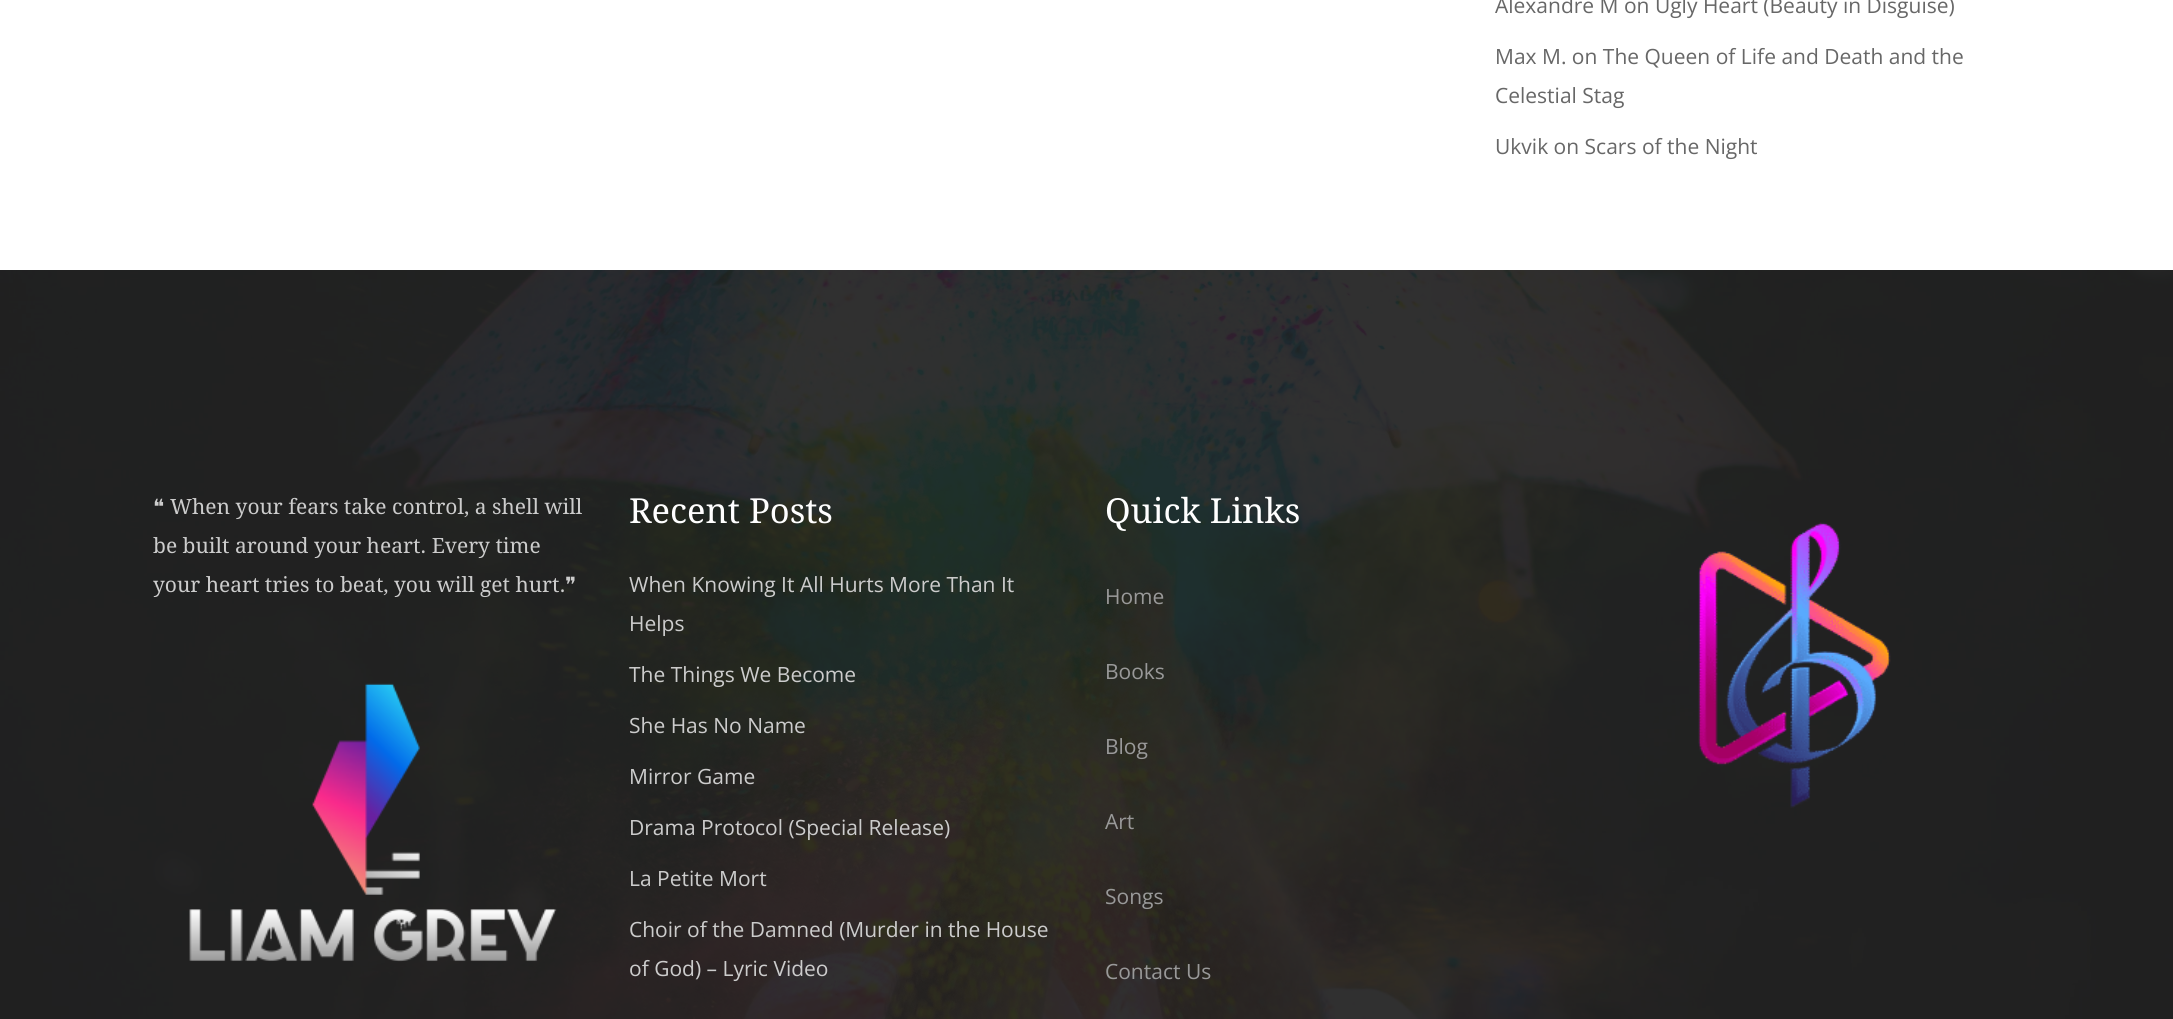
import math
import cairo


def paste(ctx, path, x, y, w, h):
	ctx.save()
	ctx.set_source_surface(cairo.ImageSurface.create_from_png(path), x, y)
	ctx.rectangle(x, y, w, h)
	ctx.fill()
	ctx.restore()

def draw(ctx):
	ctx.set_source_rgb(1, 1, 1)
	ctx.paint()
	ctx.select_font_face('Open Sans')
	ctx.set_font_size(21)
	ctx.set_source_rgb(0.404, 0.404, 0.404)
	for x, y, s in [
		(1495, 13, 'Alexandre M on Ugly Heart (Beauty in Disguise)'),
		(1495, 64, 'Max M. on The Queen of Life and Death and the'),
		(1495, 103, 'Celestial Stag'),
		(1495, 154, 'Ukvik on Scars of the Night'),
	]:
		ctx.move_to(x, y)
		ctx.show_text(s)
	paste(ctx, 'media/1.png', 0, 270, 2173, 749)
	ctx.select_font_face('DejaVu Sans')
	ctx.set_source_rgb(0.8, 0.8, 0.8)
	ctx.move_to(153, 514)
	ctx.show_text('❝')
	ctx.select_font_face('Droid Serif')
	for x, y, s in [
		(170, 514, 'When your fears take control, a shell will'),
		(153, 553, 'be built around your heart. Every time'),
		(153, 592, 'your heart tries to beat, you will get hurt.'),
	]:
		ctx.move_to(x, y)
		ctx.show_text(s)
	ctx.select_font_face('DejaVu Sans')
	ctx.move_to(565, 592)
	ctx.show_text('❞')
	paste(ctx, 'media/2.png', 189, 683, 368, 279)
	ctx.select_font_face('Droid Serif')
	ctx.set_font_size(34.5)
	ctx.set_source_rgb(1, 1, 1)
	ctx.move_to(629, 523)
	ctx.show_text('Recent Posts')
	ctx.select_font_face('Open Sans')
	ctx.set_font_size(21)
	ctx.set_source_rgb(0.8, 0.8, 0.8)
	for x, y, s in [
		(629, 592, 'When Knowing It All Hurts More Than It'),
		(629, 631, 'Helps'),
		(629, 682, 'The Things We Become'),
		(629, 733, 'She Has No Name'),
		(629, 784, 'Mirror Game'),
		(629, 835, 'Drama Protocol (Special Release)'),
		(629, 886, 'La Petite Mort'),
		(629, 937, 'Choir of the Damned (Murder in the House'),
		(629, 976, 'of God) – Lyric Video'),
	]:
		ctx.move_to(x, y)
		ctx.show_text(s)
	ctx.select_font_face('Droid Serif')
	ctx.set_font_size(34.5)
	ctx.set_source_rgb(1, 1, 1)
	ctx.move_to(1105, 523)
	ctx.show_text('Quick Links')
	ctx.select_font_face('Open Sans')
	ctx.set_font_size(21)
	ctx.set_source_rgb(0.6, 0.6, 0.6)
	for x, y, s in [
		(1105, 604, 'Home'),
		(1105, 679, 'Books'),
		(1105, 754, 'Blog'),
		(1105, 829, 'Art'),
		(1105, 904, 'Songs'),
		(1105, 979, 'Contact Us'),
	]:
		ctx.move_to(x, y)
		ctx.show_text(s)
	paste(ctx, 'media/3.png', 1698, 522, 193, 286)


surface = cairo.ImageSurface(cairo.FORMAT_RGB24, 2173, 1019)
ctx = cairo.Context(surface)
options = cairo.FontOptions()
options.set_hint_metrics(cairo.HINT_METRICS_OFF)
options.set_hint_style(cairo.HINT_STYLE_NONE)
ctx.set_font_options(options)
ctx.set_miter_limit(4)
draw(ctx)
surface.write_to_png('image.png')
